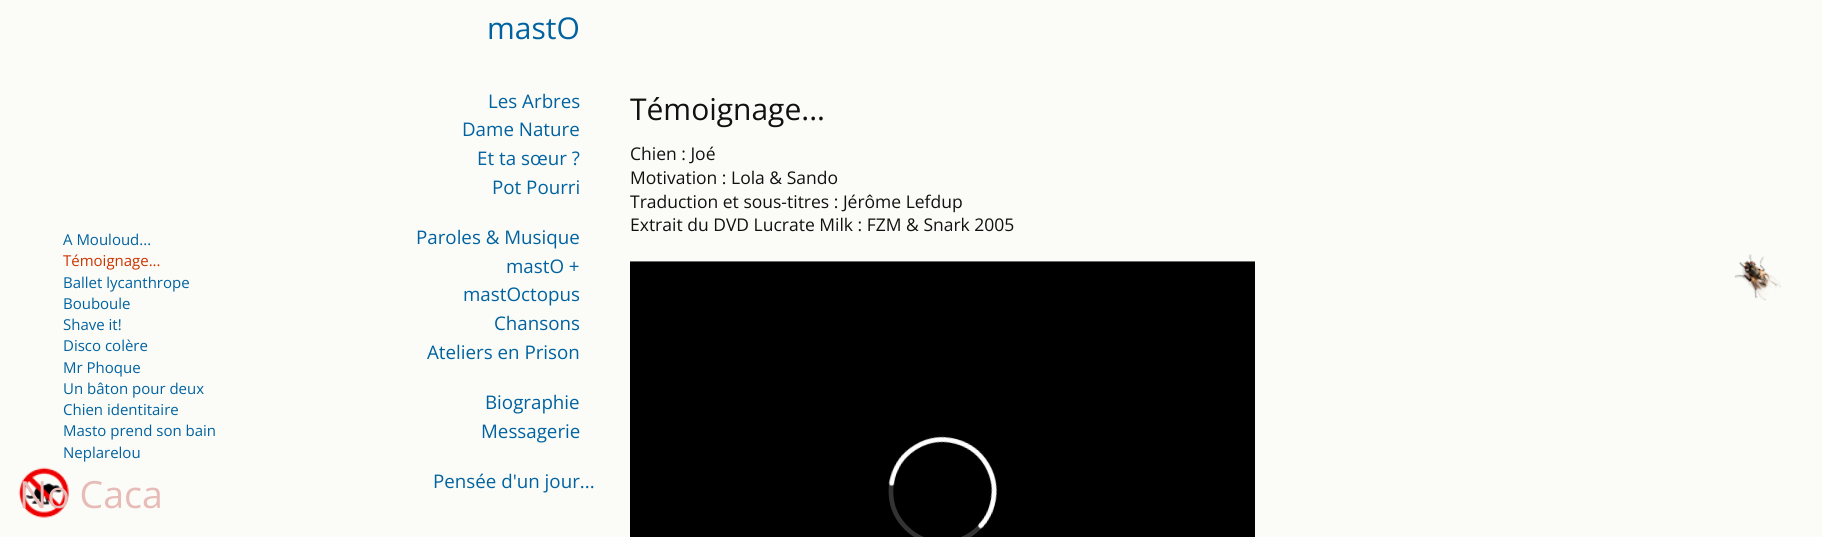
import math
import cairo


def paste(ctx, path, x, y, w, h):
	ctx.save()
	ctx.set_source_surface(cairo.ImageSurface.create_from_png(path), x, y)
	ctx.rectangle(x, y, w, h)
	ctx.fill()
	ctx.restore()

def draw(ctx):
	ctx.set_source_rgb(0.984, 0.988, 0.965)
	ctx.paint()
	ctx.select_font_face('Open Sans')
	ctx.set_font_size(30)
	ctx.set_source_rgb(0, 0.384, 0.627)
	ctx.move_to(487, 39)
	ctx.show_text('mastO')
	ctx.set_font_size(18.75)
	for x, y, s in [
		(488, 108, 'Les Arbres'),
		(462, 136, 'Dame Nature'),
		(477, 165, 'Et ta sœur ?'),
		(492, 194, 'Pot Pourri'),
	]:
		ctx.move_to(x, y)
		ctx.show_text(s)
	paste(ctx, 'media/1.png', 18, 467, 51, 51)
	ctx.set_font_size(15)
	ctx.move_to(63, 245)
	ctx.show_text('A Mouloud...')
	ctx.set_source_rgb(0.8, 0.2, 0)
	ctx.move_to(63, 266)
	ctx.show_text('Témoignage...')
	ctx.set_source_rgb(0, 0.384, 0.627)
	for x, y, s in [
		(63, 288, 'Ballet lycanthrope'),
		(63, 309, 'Bouboule'),
		(63, 330, 'Shave it!'),
		(63, 351, 'Disco colère'),
		(63, 373, 'Mr Phoque'),
		(63, 394, 'Un bâton pour deux'),
		(63, 415, 'Chien identitaire'),
		(63, 436, 'Masto prend son bain'),
		(63, 458, 'Neplarelou'),
	]:
		ctx.move_to(x, y)
		ctx.show_text(s)
	ctx.set_font_size(37.5)
	ctx.set_source_rgb(0.906, 0.733, 0.718)
	ctx.move_to(19, 508)
	ctx.show_text('No Caca')
	ctx.set_font_size(18.75)
	ctx.set_source_rgb(0, 0.384, 0.627)
	for x, y, s in [
		(416, 244, 'Paroles & Musique'),
		(506, 273, 'mastO +'),
		(463, 301, 'mastOctopus'),
		(494, 330, 'Chansons'),
		(427, 359, 'Ateliers en Prison'),
		(485, 409, 'Biographie'),
		(481, 438, 'Messagerie'),
		(433, 488, 'Pensée d\'un jour...'),
	]:
		ctx.move_to(x, y)
		ctx.show_text(s)
	ctx.set_font_size(30)
	ctx.set_source_rgb(0.067, 0.067, 0.067)
	ctx.move_to(630, 120)
	ctx.show_text('Témoignage...')
	ctx.set_font_size(17.5)
	for x, y, s in [
		(630, 160, 'Chien : Joé'),
		(630, 184, 'Motivation : Lola & Sando'),
		(630, 208, 'Traduction et sous-titres : Jérôme Lefdup'),
		(630, 231, 'Extrait du DVD Lucrate Milk : FZM & Snark 2005'),
	]:
		ctx.move_to(x, y)
		ctx.show_text(s)
	paste(ctx, 'media/2.png', 630, 261, 625, 276)
	paste(ctx, 'media/3.png', 1734, 254, 47, 47)


surface = cairo.ImageSurface(cairo.FORMAT_RGB24, 1822, 537)
ctx = cairo.Context(surface)
options = cairo.FontOptions()
options.set_hint_metrics(cairo.HINT_METRICS_OFF)
options.set_hint_style(cairo.HINT_STYLE_NONE)
ctx.set_font_options(options)
ctx.set_miter_limit(4)
draw(ctx)
surface.write_to_png('image.png')
